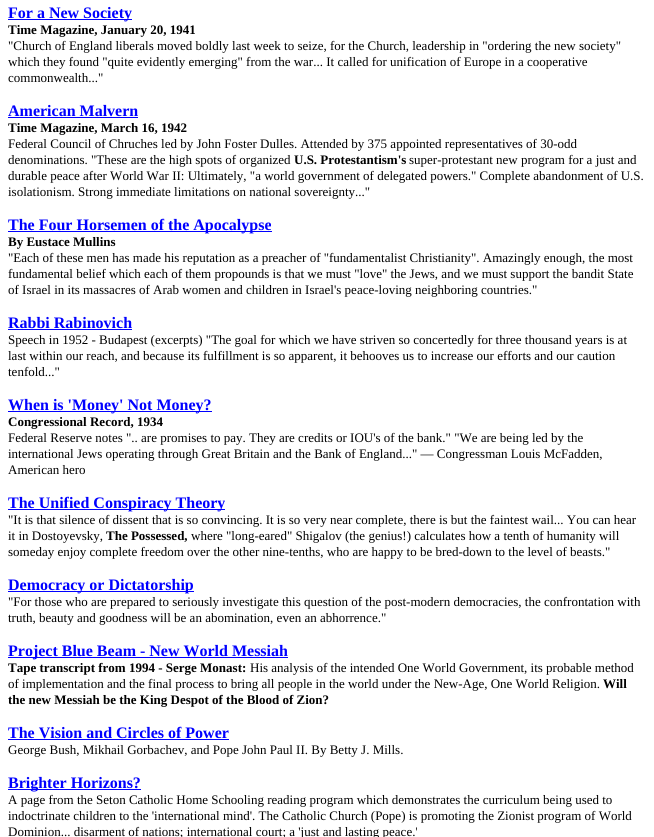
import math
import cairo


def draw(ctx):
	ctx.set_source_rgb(1, 1, 1)
	ctx.paint()
	ctx.set_source_rgb(0, 0, 1)
	ctx.rectangle(8, 19, 124, 1)
	ctx.fill()
	ctx.select_font_face('Liberation Serif', cairo.FONT_SLANT_NORMAL, cairo.FONT_WEIGHT_BOLD)
	ctx.set_font_size(16)
	ctx.move_to(8, 18)
	ctx.show_text('For a New Society')
	ctx.set_font_size(13)
	ctx.set_source_rgb(0, 0, 0)
	ctx.move_to(8, 34)
	ctx.show_text('Time Magazine, January 20, 1941')
	ctx.select_font_face('Liberation Serif')
	for x, y, s in [
		(8, 50, '"Church of England liberals moved boldly last week to seize, for the Church, leadership in "ordering the new society"'),
		(8, 66, 'which they found "quite evidently emerging" from the war... It called for unification of Europe in a cooperative'),
		(8, 82, 'commonwealth..."'),
	]:
		ctx.move_to(x, y)
		ctx.show_text(s)
	ctx.select_font_face('Liberation Serif', cairo.FONT_SLANT_NORMAL, cairo.FONT_WEIGHT_BOLD)
	ctx.set_font_size(16)
	ctx.set_source_rgb(0, 0, 1)
	ctx.move_to(8, 116)
	ctx.show_text('American Malvern')
	ctx.rectangle(8, 117, 130, 1)
	ctx.fill()
	ctx.set_font_size(13)
	ctx.set_source_rgb(0, 0, 0)
	ctx.move_to(8, 132)
	ctx.show_text('Time Magazine, March 16, 1942')
	ctx.select_font_face('Liberation Serif')
	ctx.move_to(8, 148)
	ctx.show_text('Federal Council of Chruches led by John Foster Dulles. Attended by 375 appointed representatives of 30-odd')
	ctx.move_to(8, 164)
	ctx.show_text('denominations. "These are the high spots of organized')
	ctx.select_font_face('Liberation Serif', cairo.FONT_SLANT_NORMAL, cairo.FONT_WEIGHT_BOLD)
	ctx.move_to(294, 164)
	ctx.show_text('U.S. Protestantism\'s')
	ctx.select_font_face('Liberation Serif')
	for x, y, s in [
		(409, 164, 'super-protestant new program for a just and'),
		(8, 180, 'durable peace after World War II: Ultimately, "a world government of delegated powers." Complete abandonment of U.S.'),
		(8, 196, 'isolationism. Strong immediate limitations on national sovereignty..."'),
	]:
		ctx.move_to(x, y)
		ctx.show_text(s)
	ctx.set_source_rgb(0, 0, 1)
	ctx.rectangle(8, 231, 264, 1)
	ctx.fill()
	ctx.select_font_face('Liberation Serif', cairo.FONT_SLANT_NORMAL, cairo.FONT_WEIGHT_BOLD)
	ctx.set_font_size(16)
	ctx.move_to(8, 230)
	ctx.show_text('The Four Horsemen of the Apocalypse')
	ctx.set_font_size(13)
	ctx.set_source_rgb(0, 0, 0)
	ctx.move_to(8, 246)
	ctx.show_text('By Eustace Mullins')
	ctx.select_font_face('Liberation Serif')
	for x, y, s in [
		(8, 262, '"Each of these men has made his reputation as a preacher of "fundamentalist Christianity". Amazingly enough, the most'),
		(8, 278, 'fundamental belief which each of them propounds is that we must "love" the Jews, and we must support the bandit State'),
		(8, 294, 'of Israel in its massacres of Arab women and children in Israel\'s peace-loving neighboring countries."'),
	]:
		ctx.move_to(x, y)
		ctx.show_text(s)
	ctx.select_font_face('Liberation Serif', cairo.FONT_SLANT_NORMAL, cairo.FONT_WEIGHT_BOLD)
	ctx.set_font_size(16)
	ctx.set_source_rgb(0, 0, 1)
	ctx.move_to(8, 328)
	ctx.show_text('Rabbi Rabinovich')
	ctx.rectangle(8, 329, 124, 1)
	ctx.fill()
	ctx.select_font_face('Liberation Serif')
	ctx.set_font_size(13)
	ctx.set_source_rgb(0, 0, 0)
	for x, y, s in [
		(8, 344, 'Speech in 1952 - Budapest (excerpts) "The goal for which we have striven so concertedly for three thousand years is at'),
		(8, 360, 'last within our reach, and because its fulfillment is so apparent, it behooves us to increase our efforts and our caution'),
		(8, 376, 'tenfold..."'),
	]:
		ctx.move_to(x, y)
		ctx.show_text(s)
	ctx.set_source_rgb(0, 0, 1)
	ctx.rectangle(8, 411, 204, 1)
	ctx.fill()
	ctx.select_font_face('Liberation Serif', cairo.FONT_SLANT_NORMAL, cairo.FONT_WEIGHT_BOLD)
	ctx.set_font_size(16)
	ctx.move_to(8, 410)
	ctx.show_text('When is \'Money\' Not Money?')
	ctx.set_font_size(13)
	ctx.set_source_rgb(0, 0, 0)
	ctx.move_to(8, 426)
	ctx.show_text('Congressional Record, 1934')
	ctx.select_font_face('Liberation Serif')
	for x, y, s in [
		(8, 442, 'Federal Reserve notes ".. are promises to pay. They are credits or IOU\'s of the bank." "We are being led by the'),
		(8, 458, 'international Jews operating through Great Britain and the Bank of England..." — Congressman Louis McFadden,'),
		(8, 474, 'American hero'),
	]:
		ctx.move_to(x, y)
		ctx.show_text(s)
	ctx.set_source_rgb(0, 0, 1)
	ctx.rectangle(8, 509, 217, 1)
	ctx.fill()
	ctx.select_font_face('Liberation Serif', cairo.FONT_SLANT_NORMAL, cairo.FONT_WEIGHT_BOLD)
	ctx.set_font_size(16)
	ctx.move_to(8, 508)
	ctx.show_text('The Unified Conspiracy Theory')
	ctx.select_font_face('Liberation Serif')
	ctx.set_font_size(13)
	ctx.set_source_rgb(0, 0, 0)
	ctx.move_to(8, 524)
	ctx.show_text('"It is that silence of dissent that is so convincing. It is so very near complete, there is but the faintest wail... You can hear')
	ctx.move_to(8, 540)
	ctx.show_text('it in Dostoyevsky,')
	ctx.select_font_face('Liberation Serif', cairo.FONT_SLANT_NORMAL, cairo.FONT_WEIGHT_BOLD)
	ctx.move_to(106, 540)
	ctx.show_text('The Possessed,')
	ctx.select_font_face('Liberation Serif')
	ctx.move_to(191, 540)
	ctx.show_text('where "long-eared" Shigalov (the genius!) calculates how a tenth of humanity will')
	ctx.move_to(8, 556)
	ctx.show_text('someday enjoy complete freedom over the other nine-tenths, who are happy to be bred-down to the level of beasts."')
	ctx.set_source_rgb(0, 0, 1)
	ctx.rectangle(8, 591, 186, 1)
	ctx.fill()
	ctx.select_font_face('Liberation Serif', cairo.FONT_SLANT_NORMAL, cairo.FONT_WEIGHT_BOLD)
	ctx.set_font_size(16)
	ctx.move_to(8, 590)
	ctx.show_text('Democracy or Dictatorship')
	ctx.select_font_face('Liberation Serif')
	ctx.set_font_size(13)
	ctx.set_source_rgb(0, 0, 0)
	ctx.move_to(8, 606)
	ctx.show_text('"For those who are prepared to seriously investigate this question of the post-modern democracies, the confrontation with')
	ctx.move_to(8, 622)
	ctx.show_text('truth, beauty and goodness will be an abomination, even an abhorrence."')
	ctx.set_source_rgb(0, 0, 1)
	ctx.rectangle(8, 657, 280, 1)
	ctx.fill()
	ctx.select_font_face('Liberation Serif', cairo.FONT_SLANT_NORMAL, cairo.FONT_WEIGHT_BOLD)
	ctx.set_font_size(16)
	ctx.move_to(8, 656)
	ctx.show_text('Project Blue Beam - New World Messiah')
	ctx.set_font_size(13)
	ctx.set_source_rgb(0, 0, 0)
	ctx.move_to(8, 672)
	ctx.show_text('Tape transcript from 1994 - Serge Monast:')
	ctx.select_font_face('Liberation Serif')
	ctx.move_to(250, 672)
	ctx.show_text('His analysis of the intended One World Government, its probable method')
	ctx.move_to(8, 688)
	ctx.show_text('of implementation and the final process to bring all people in the world under the New-Age, One World Religion.')
	ctx.select_font_face('Liberation Serif', cairo.FONT_SLANT_NORMAL, cairo.FONT_WEIGHT_BOLD)
	ctx.move_to(603, 688)
	ctx.show_text('Will')
	ctx.move_to(8, 704)
	ctx.show_text('the new Messiah be the King Despot of the Blood of Zion?')
	ctx.set_font_size(16)
	ctx.set_source_rgb(0, 0, 1)
	ctx.move_to(8, 738)
	ctx.show_text('The Vision and Circles of Power')
	ctx.rectangle(8, 739, 221, 1)
	ctx.fill()
	ctx.select_font_face('Liberation Serif')
	ctx.set_font_size(13)
	ctx.set_source_rgb(0, 0, 0)
	ctx.move_to(8, 754)
	ctx.show_text('George Bush, Mikhail Gorbachev, and Pope John Paul II. By Betty J. Mills.')
	ctx.set_source_rgb(0, 0, 1)
	ctx.rectangle(8, 789, 133, 1)
	ctx.fill()
	ctx.select_font_face('Liberation Serif', cairo.FONT_SLANT_NORMAL, cairo.FONT_WEIGHT_BOLD)
	ctx.set_font_size(16)
	ctx.move_to(8, 788)
	ctx.show_text('Brighter Horizons?')
	ctx.select_font_face('Liberation Serif')
	ctx.set_font_size(13)
	ctx.set_source_rgb(0, 0, 0)
	for x, y, s in [
		(8, 804, 'A page from the Seton Catholic Home Schooling reading program which demonstrates the curriculum being used to'),
		(8, 820, 'indoctrinate children to the \'international mind\'. The Catholic Church (Pope) is promoting the Zionist program of World'),
		(8, 836, 'Dominion... disarment of nations; international court; a \'just and lasting peace.\''),
	]:
		ctx.move_to(x, y)
		ctx.show_text(s)


surface = cairo.ImageSurface(cairo.FORMAT_RGB24, 654, 837)
ctx = cairo.Context(surface)
options = cairo.FontOptions()
options.set_hint_metrics(cairo.HINT_METRICS_OFF)
options.set_hint_style(cairo.HINT_STYLE_NONE)
ctx.set_font_options(options)
ctx.set_miter_limit(4)
draw(ctx)
surface.write_to_png('image.png')
